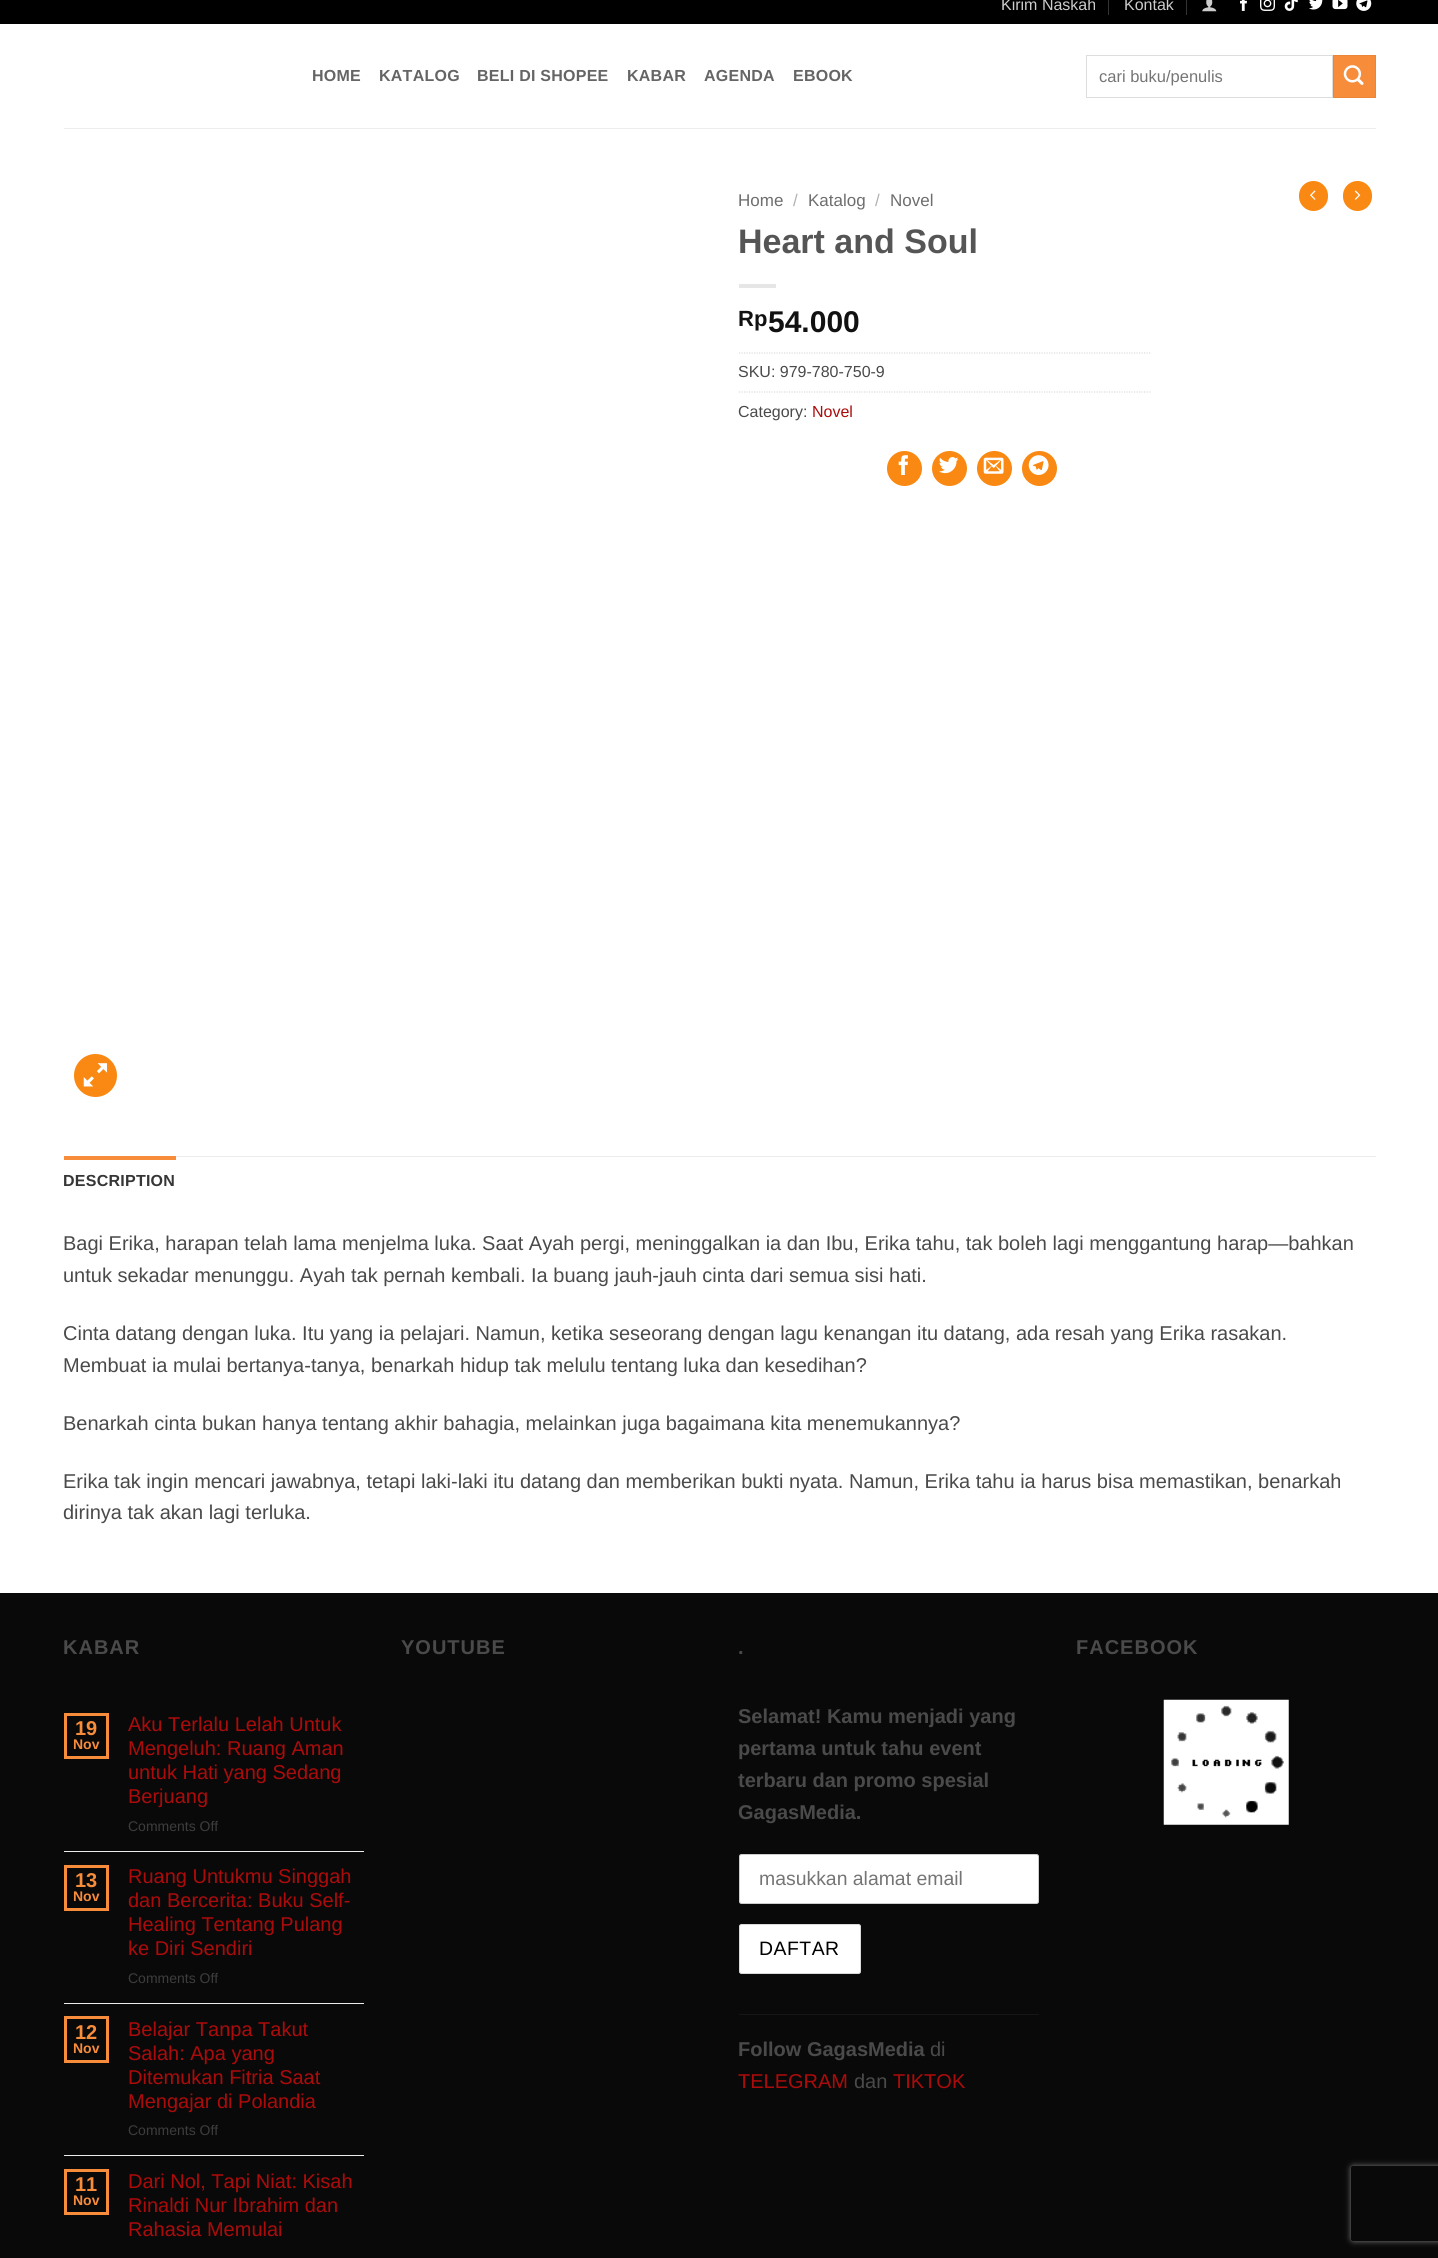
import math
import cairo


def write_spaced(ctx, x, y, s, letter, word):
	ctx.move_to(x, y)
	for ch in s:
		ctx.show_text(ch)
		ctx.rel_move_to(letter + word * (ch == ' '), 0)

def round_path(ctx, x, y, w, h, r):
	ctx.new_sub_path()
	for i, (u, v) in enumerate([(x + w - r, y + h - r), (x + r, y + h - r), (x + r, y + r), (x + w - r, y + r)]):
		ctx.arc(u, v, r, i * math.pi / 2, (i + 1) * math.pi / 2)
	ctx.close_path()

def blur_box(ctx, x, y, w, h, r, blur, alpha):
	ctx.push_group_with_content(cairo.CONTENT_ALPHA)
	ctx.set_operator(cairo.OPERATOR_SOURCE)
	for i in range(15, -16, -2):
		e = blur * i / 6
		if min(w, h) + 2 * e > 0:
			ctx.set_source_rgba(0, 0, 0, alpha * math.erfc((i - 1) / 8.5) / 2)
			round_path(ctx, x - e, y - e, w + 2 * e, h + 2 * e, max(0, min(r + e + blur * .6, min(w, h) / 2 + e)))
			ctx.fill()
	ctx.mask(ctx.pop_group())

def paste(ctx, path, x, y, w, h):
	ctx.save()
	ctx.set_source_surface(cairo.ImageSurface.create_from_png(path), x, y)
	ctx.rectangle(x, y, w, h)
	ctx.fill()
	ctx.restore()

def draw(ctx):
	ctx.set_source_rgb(1, 1, 1)
	ctx.paint()
	ctx.set_source_rgb(0, 0, 0)
	ctx.rectangle(0, 0, 1438, 24)
	ctx.fill()
	ctx.select_font_face('Liberation Sans')
	ctx.set_font_size(16)
	ctx.set_source_rgb(0.8, 0.8, 0.8)
	ctx.move_to(1001, 10)
	ctx.show_text('Kirim Naskah')
	ctx.set_source_rgb(0.2, 0.2, 0.2)
	ctx.rectangle(1108, 0, 1, 15)
	ctx.fill()
	ctx.set_source_rgb(0.8, 0.8, 0.8)
	ctx.move_to(1124, 10)
	ctx.show_text('Kontak')
	ctx.set_source_rgb(0.2, 0.2, 0.2)
	ctx.rectangle(1186, 0, 1, 15)
	ctx.fill()
	paste(ctx, 'media/1.png', 1202, 0, 15, 12)
	paste(ctx, 'media/2.png', 1240, 0, 7, 11)
	paste(ctx, 'media/3.png', 1260, 0, 15, 11)
	paste(ctx, 'media/4.png', 1284, 0, 14, 11)
	paste(ctx, 'media/5.png', 1309, 0, 14, 10)
	paste(ctx, 'media/6.png', 1332, 0, 16, 10)
	paste(ctx, 'media/7.png', 1356, 0, 16, 11)
	ctx.select_font_face('Liberation Sans', cairo.FONT_SLANT_NORMAL, cairo.FONT_WEIGHT_BOLD)
	ctx.set_source_rgb(0.396, 0.396, 0.396)
	for x, y, s in [
		(312, 81, 'HOME'),
		(379, 81, 'KATALOG'),
		(477, 81, 'BELI DI SHOPEE'),
		(627, 81, 'KABAR'),
		(704, 81, 'AGENDA'),
		(793, 81, 'EBOOK'),
	]:
		write_spaced(ctx, x, y, s, 0.25, 0)
	ctx.rectangle(1086.5, 55.5, 246, 42)
	ctx.set_source_rgb(0.867, 0.867, 0.867)
	ctx.set_line_width(1)
	ctx.stroke()
	ctx.select_font_face('Liberation Sans')
	ctx.set_font_size(16.5)
	ctx.set_source_rgb(0.459, 0.459, 0.459)
	ctx.move_to(1099, 82)
	ctx.show_text('cari buku/penulis')
	ctx.set_source_rgb(0.965, 0.549, 0.231)
	ctx.rectangle(1333.5, 55.5, 42, 42)
	ctx.fill_preserve()
	ctx.set_source_rgb(0.918, 0.522, 0.22)
	ctx.stroke()
	paste(ctx, 'media/8.png', 1343, 65, 21, 20)
	ctx.set_source_rgb(0.929, 0.929, 0.929)
	ctx.rectangle(64, 128, 1312, 1)
	ctx.fill()
	ctx.set_font_size(17)
	ctx.set_source_rgb(0.431, 0.431, 0.431)
	ctx.move_to(738, 206)
	ctx.show_text('Home')
	ctx.set_source_rgb(0.698, 0.698, 0.698)
	ctx.move_to(793, 206)
	ctx.show_text('/')
	ctx.set_source_rgb(0.431, 0.431, 0.431)
	ctx.move_to(808, 206)
	ctx.show_text('Katalog')
	ctx.set_source_rgb(0.698, 0.698, 0.698)
	ctx.move_to(875, 206)
	ctx.show_text('/')
	ctx.set_source_rgb(0.431, 0.431, 0.431)
	ctx.move_to(890, 206)
	ctx.show_text('Novel')
	ctx.select_font_face('Liberation Sans', cairo.FONT_SLANT_NORMAL, cairo.FONT_WEIGHT_BOLD)
	ctx.set_font_size(34)
	ctx.set_source_rgb(0.333, 0.333, 0.333)
	ctx.move_to(738, 253)
	ctx.show_text('Heart and Soul')
	ctx.set_source_rgb(0.902, 0.902, 0.902)
	ctx.rectangle(739, 284, 37, 4)
	ctx.fill()
	ctx.set_font_size(22)
	ctx.set_source_rgb(0.067, 0.067, 0.067)
	ctx.move_to(738, 326)
	ctx.show_text('Rp')
	ctx.set_font_size(30)
	ctx.move_to(768, 332)
	ctx.show_text('54.000')
	ctx.new_path()
	ctx.move_to(739, 353)
	ctx.line_to(1151, 353)
	ctx.set_source_rgb(0.867, 0.867, 0.867)
	ctx.set_line_width(1.2)
	ctx.set_dash([1.25, 1.25])
	ctx.stroke()
	ctx.select_font_face('Liberation Sans')
	ctx.set_font_size(16)
	ctx.set_source_rgb(0.29, 0.29, 0.29)
	ctx.move_to(738, 377)
	ctx.show_text('SKU: 979-780-750-9')
	ctx.new_path()
	ctx.move_to(739, 392)
	ctx.line_to(1151, 392)
	ctx.set_source_rgb(0.867, 0.867, 0.867)
	ctx.stroke()
	ctx.set_source_rgb(0.29, 0.29, 0.29)
	ctx.move_to(738, 417)
	ctx.show_text('Category:')
	ctx.set_source_rgb(0.675, 0.043, 0.043)
	ctx.move_to(812, 417)
	ctx.show_text('Novel')
	ctx.set_source_rgb(0.976, 0.537, 0.071)
	ctx.new_path()
	ctx.arc(904.5, 468.5, 19, 0, 2 * math.pi)
	ctx.fill_preserve()
	ctx.set_source_rgb(1, 1, 1)
	ctx.set_line_width(3)
	ctx.set_dash([])
	ctx.stroke()
	paste(ctx, 'media/9.png', 898, 455, 10, 20)
	ctx.set_source_rgb(0.976, 0.537, 0.071)
	ctx.arc(949.5, 468.5, 19, 0, 2 * math.pi)
	ctx.fill_preserve()
	ctx.set_source_rgb(1, 1, 1)
	ctx.stroke()
	paste(ctx, 'media/10.png', 939, 457, 20, 17)
	ctx.set_source_rgb(0.976, 0.537, 0.071)
	ctx.arc(994.5, 468.5, 19, 0, 2 * math.pi)
	ctx.fill_preserve()
	ctx.set_source_rgb(1, 1, 1)
	ctx.stroke()
	paste(ctx, 'media/11.png', 983, 457, 21, 17)
	ctx.set_source_rgb(0.976, 0.537, 0.071)
	ctx.arc(1039.5, 468.5, 19, 0, 2 * math.pi)
	ctx.fill_preserve()
	ctx.set_source_rgb(1, 1, 1)
	ctx.stroke()
	paste(ctx, 'media/12.png', 1028, 455, 21, 20)
	ctx.set_source_rgb(0.976, 0.537, 0.071)
	round_path(ctx, 1297.5, 179.5, 32, 33, 16)
	ctx.fill_preserve()
	ctx.set_source_rgb(1, 1, 1)
	ctx.stroke()
	paste(ctx, 'media/13.png', 1310, 190, 6, 10)
	ctx.set_source_rgb(0.976, 0.537, 0.071)
	round_path(ctx, 1341.5, 179.5, 32, 33, 16)
	ctx.fill_preserve()
	ctx.set_source_rgb(1, 1, 1)
	ctx.stroke()
	paste(ctx, 'media/14.png', 1354, 190, 7, 10)
	ctx.set_source_rgb(0.976, 0.537, 0.071)
	ctx.arc(95.5, 1075.5, 23, 0, 2 * math.pi)
	ctx.fill_preserve()
	ctx.set_source_rgb(1, 1, 1)
	ctx.stroke()
	paste(ctx, 'media/15.png', 83, 1063, 25, 24)
	ctx.set_source_rgb(0.925, 0.925, 0.925)
	ctx.rectangle(176, 1156, 1200, 1)
	ctx.fill()
	ctx.set_source_rgb(0.965, 0.549, 0.231)
	ctx.rectangle(64, 1156, 112, 4)
	ctx.fill()
	ctx.select_font_face('Liberation Sans', cairo.FONT_SLANT_NORMAL, cairo.FONT_WEIGHT_BOLD)
	ctx.set_source_rgb(0.212, 0.212, 0.212)
	write_spaced(ctx, 63, 1186, 'DESCRIPTION', 0.25, 0)
	ctx.select_font_face('Liberation Sans')
	ctx.set_font_size(20)
	ctx.set_source_rgb(0.29, 0.29, 0.29)
	for x, y, s in [
		(63, 1250, 'Bagi Erika, harapan telah lama menjelma luka. Saat Ayah pergi, meninggalkan ia dan Ibu, Erika tahu, tak boleh lagi menggantung harap—bahkan'),
		(63, 1282, 'untuk sekadar menunggu. Ayah tak pernah kembali. Ia buang jauh-jauh cinta dari semua sisi hati.'),
		(63, 1340, 'Cinta datang dengan luka. Itu yang ia pelajari. Namun, ketika seseorang dengan lagu kenangan itu datang, ada resah yang Erika rasakan.'),
		(63, 1372, 'Membuat ia mulai bertanya-tanya, benarkah hidup tak melulu tentang luka dan kesedihan?'),
		(63, 1430, 'Benarkah cinta bukan hanya tentang akhir bahagia, melainkan juga bagaimana kita menemukannya?'),
		(63, 1488, 'Erika tak ingin mencari jawabnya, tetapi laki-laki itu datang dan memberikan bukti nyata. Namun, Erika tahu ia harus bisa memastikan, benarkah'),
		(63, 1519, 'dirinya tak akan lagi terluka.'),
	]:
		ctx.move_to(x, y)
		ctx.show_text(s)
	ctx.set_source_rgb(0.039, 0.039, 0.039)
	ctx.rectangle(0, 1593, 1438, 665)
	ctx.fill()
	ctx.select_font_face('Liberation Sans', cairo.FONT_SLANT_NORMAL, cairo.FONT_WEIGHT_BOLD)
	ctx.set_source_rgb(0.29, 0.29, 0.29)
	write_spaced(ctx, 63, 1654, 'KABAR', 1, 0)
	ctx.rectangle(65.5, 1714.5, 42, 43)
	ctx.set_source_rgb(0.965, 0.549, 0.231)
	ctx.stroke()
	ctx.move_to(75, 1735)
	ctx.show_text('19')
	ctx.set_font_size(14)
	ctx.move_to(73, 1749)
	ctx.show_text('Nov')
	ctx.select_font_face('Liberation Sans')
	ctx.set_font_size(20)
	ctx.set_source_rgb(0.675, 0.043, 0.043)
	for x, y, s in [
		(128, 1731, 'Aku Terlalu Lelah Untuk'),
		(128, 1755, 'Mengeluh: Ruang Aman'),
		(128, 1779, 'untuk Hati yang Sedang'),
		(128, 1803, 'Berjuang'),
	]:
		ctx.move_to(x, y)
		ctx.show_text(s)
	ctx.set_font_size(14)
	ctx.set_source_rgb(0.239, 0.239, 0.239)
	ctx.move_to(128, 1831)
	ctx.show_text('Comments Off')
	ctx.set_source_rgb(0.925, 0.925, 0.925)
	ctx.rectangle(64, 1851, 300, 1)
	ctx.fill()
	ctx.rectangle(65.5, 1866.5, 42, 43)
	ctx.set_source_rgb(0.965, 0.549, 0.231)
	ctx.stroke()
	ctx.select_font_face('Liberation Sans', cairo.FONT_SLANT_NORMAL, cairo.FONT_WEIGHT_BOLD)
	ctx.set_font_size(20)
	ctx.move_to(75, 1887)
	ctx.show_text('13')
	ctx.set_font_size(14)
	ctx.move_to(73, 1901)
	ctx.show_text('Nov')
	ctx.select_font_face('Liberation Sans')
	ctx.set_font_size(20)
	ctx.set_source_rgb(0.675, 0.043, 0.043)
	for x, y, s in [
		(128, 1883, 'Ruang Untukmu Singgah'),
		(128, 1907, 'dan Bercerita: Buku Self-'),
		(128, 1931, 'Healing Tentang Pulang'),
		(128, 1955, 'ke Diri Sendiri'),
	]:
		ctx.move_to(x, y)
		ctx.show_text(s)
	ctx.set_font_size(14)
	ctx.set_source_rgb(0.239, 0.239, 0.239)
	ctx.move_to(128, 1983)
	ctx.show_text('Comments Off')
	ctx.set_source_rgb(0.925, 0.925, 0.925)
	ctx.rectangle(64, 2003, 300, 1)
	ctx.fill()
	ctx.rectangle(65.5, 2017.5, 42, 44)
	ctx.set_source_rgb(0.965, 0.549, 0.231)
	ctx.stroke()
	ctx.select_font_face('Liberation Sans', cairo.FONT_SLANT_NORMAL, cairo.FONT_WEIGHT_BOLD)
	ctx.set_font_size(20)
	ctx.move_to(75, 2039)
	ctx.show_text('12')
	ctx.set_font_size(14)
	ctx.move_to(73, 2053)
	ctx.show_text('Nov')
	ctx.select_font_face('Liberation Sans')
	ctx.set_font_size(20)
	ctx.set_source_rgb(0.675, 0.043, 0.043)
	for x, y, s in [
		(128, 2036, 'Belajar Tanpa Takut'),
		(128, 2060, 'Salah: Apa yang'),
		(128, 2084, 'Ditemukan Fitria Saat'),
		(128, 2108, 'Mengajar di Polandia'),
	]:
		ctx.move_to(x, y)
		ctx.show_text(s)
	ctx.set_font_size(14)
	ctx.set_source_rgb(0.239, 0.239, 0.239)
	ctx.move_to(128, 2135)
	ctx.show_text('Comments Off')
	ctx.set_source_rgb(0.925, 0.925, 0.925)
	ctx.rectangle(64, 2155, 300, 1)
	ctx.fill()
	ctx.rectangle(65.5, 2170.5, 42, 43)
	ctx.set_source_rgb(0.965, 0.549, 0.231)
	ctx.stroke()
	ctx.select_font_face('Liberation Sans', cairo.FONT_SLANT_NORMAL, cairo.FONT_WEIGHT_BOLD)
	ctx.set_font_size(20)
	ctx.move_to(75, 2191)
	ctx.show_text('11')
	ctx.set_font_size(14)
	ctx.move_to(73, 2205)
	ctx.show_text('Nov')
	ctx.select_font_face('Liberation Sans')
	ctx.set_font_size(20)
	ctx.set_source_rgb(0.675, 0.043, 0.043)
	for x, y, s in [
		(128, 2188, 'Dari Nol, Tapi Niat: Kisah'),
		(128, 2212, 'Rinaldi Nur Ibrahim dan'),
		(128, 2236, 'Rahasia Memulai'),
	]:
		ctx.move_to(x, y)
		ctx.show_text(s)
	ctx.select_font_face('Liberation Sans', cairo.FONT_SLANT_NORMAL, cairo.FONT_WEIGHT_BOLD)
	ctx.set_source_rgb(0.29, 0.29, 0.29)
	write_spaced(ctx, 401, 1654, 'YOUTUBE', 1, 0)
	write_spaced(ctx, 1076, 1654, 'FACEBOOK', 1, 0)
	paste(ctx, 'media/16.png', 1163, 1699, 126, 126)
	write_spaced(ctx, 738, 1654, '.', 1, 0)
	for x, y, s in [
		(738, 1723, 'Selamat! Kamu menjadi yang'),
		(738, 1755, 'pertama untuk tahu event'),
		(738, 1787, 'terbaru dan promo spesial'),
		(738, 1819, 'GagasMedia.'),
	]:
		ctx.move_to(x, y)
		ctx.show_text(s)
	ctx.set_source_rgb(1, 1, 1)
	round_path(ctx, 739.5, 1854.5, 299, 49, 2)
	ctx.fill_preserve()
	ctx.set_source_rgb(0.8, 0.8, 0.8)
	ctx.set_line_width(1)
	ctx.stroke()
	ctx.select_font_face('Liberation Sans')
	ctx.set_font_size(19.4)
	ctx.set_source_rgb(0.459, 0.459, 0.459)
	ctx.move_to(759, 1885)
	ctx.show_text('masukkan alamat email')
	ctx.set_source_rgb(1, 1, 1)
	round_path(ctx, 739.5, 1924.5, 121, 49, 2)
	ctx.fill_preserve()
	ctx.set_source_rgb(0.851, 0.851, 0.851)
	ctx.stroke()
	ctx.set_source_rgb(0, 0, 0)
	write_spaced(ctx, 759, 1955, 'DAFTAR', 0.5, 0)
	ctx.set_source_rgb(0.086, 0.086, 0.086)
	ctx.rectangle(739, 2014, 300, 1)
	ctx.fill()
	ctx.select_font_face('Liberation Sans', cairo.FONT_SLANT_NORMAL, cairo.FONT_WEIGHT_BOLD)
	ctx.set_font_size(20)
	ctx.set_source_rgb(0.29, 0.29, 0.29)
	ctx.move_to(738, 2056)
	ctx.show_text('Follow GagasMedia')
	ctx.select_font_face('Liberation Sans')
	ctx.move_to(930, 2056)
	ctx.show_text('di')
	ctx.set_source_rgb(0.675, 0.043, 0.043)
	ctx.move_to(738, 2088)
	ctx.show_text('TELEGRAM')
	ctx.set_source_rgb(0.29, 0.29, 0.29)
	ctx.move_to(854, 2088)
	ctx.show_text('dan')
	ctx.set_source_rgb(0.675, 0.043, 0.043)
	ctx.move_to(893, 2088)
	ctx.show_text('TIKTOK')
	ctx.save()
	ctx.set_fill_rule(cairo.FILL_RULE_EVEN_ODD)
	ctx.new_path()
	ctx.move_to(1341, 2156)
	ctx.line_to(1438, 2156)
	ctx.line_to(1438, 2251)
	ctx.line_to(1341, 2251)
	ctx.close_path()
	ctx.move_to(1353.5, 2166)
	ctx.line_to(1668.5, 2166)
	ctx.curve_to(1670, 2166, 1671, 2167, 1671, 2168.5)
	ctx.line_to(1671, 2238.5)
	ctx.curve_to(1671, 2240, 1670, 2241, 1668.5, 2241)
	ctx.line_to(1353.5, 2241)
	ctx.curve_to(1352, 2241, 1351, 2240, 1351, 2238.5)
	ctx.line_to(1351, 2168.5)
	ctx.curve_to(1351, 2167, 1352, 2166, 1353.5, 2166)
	ctx.close_path()
	ctx.clip()
	ctx.set_source_rgb(0.502, 0.502, 0.502)
	blur_box(ctx, 1351, 2166, 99, 75, 2.5, 3, 1)
	ctx.restore()


surface = cairo.ImageSurface(cairo.FORMAT_RGB24, 1438, 2258)
ctx = cairo.Context(surface)
options = cairo.FontOptions()
options.set_hint_metrics(cairo.HINT_METRICS_OFF)
options.set_hint_style(cairo.HINT_STYLE_NONE)
ctx.set_font_options(options)
ctx.set_miter_limit(4)
draw(ctx)
surface.write_to_png('image.png')
